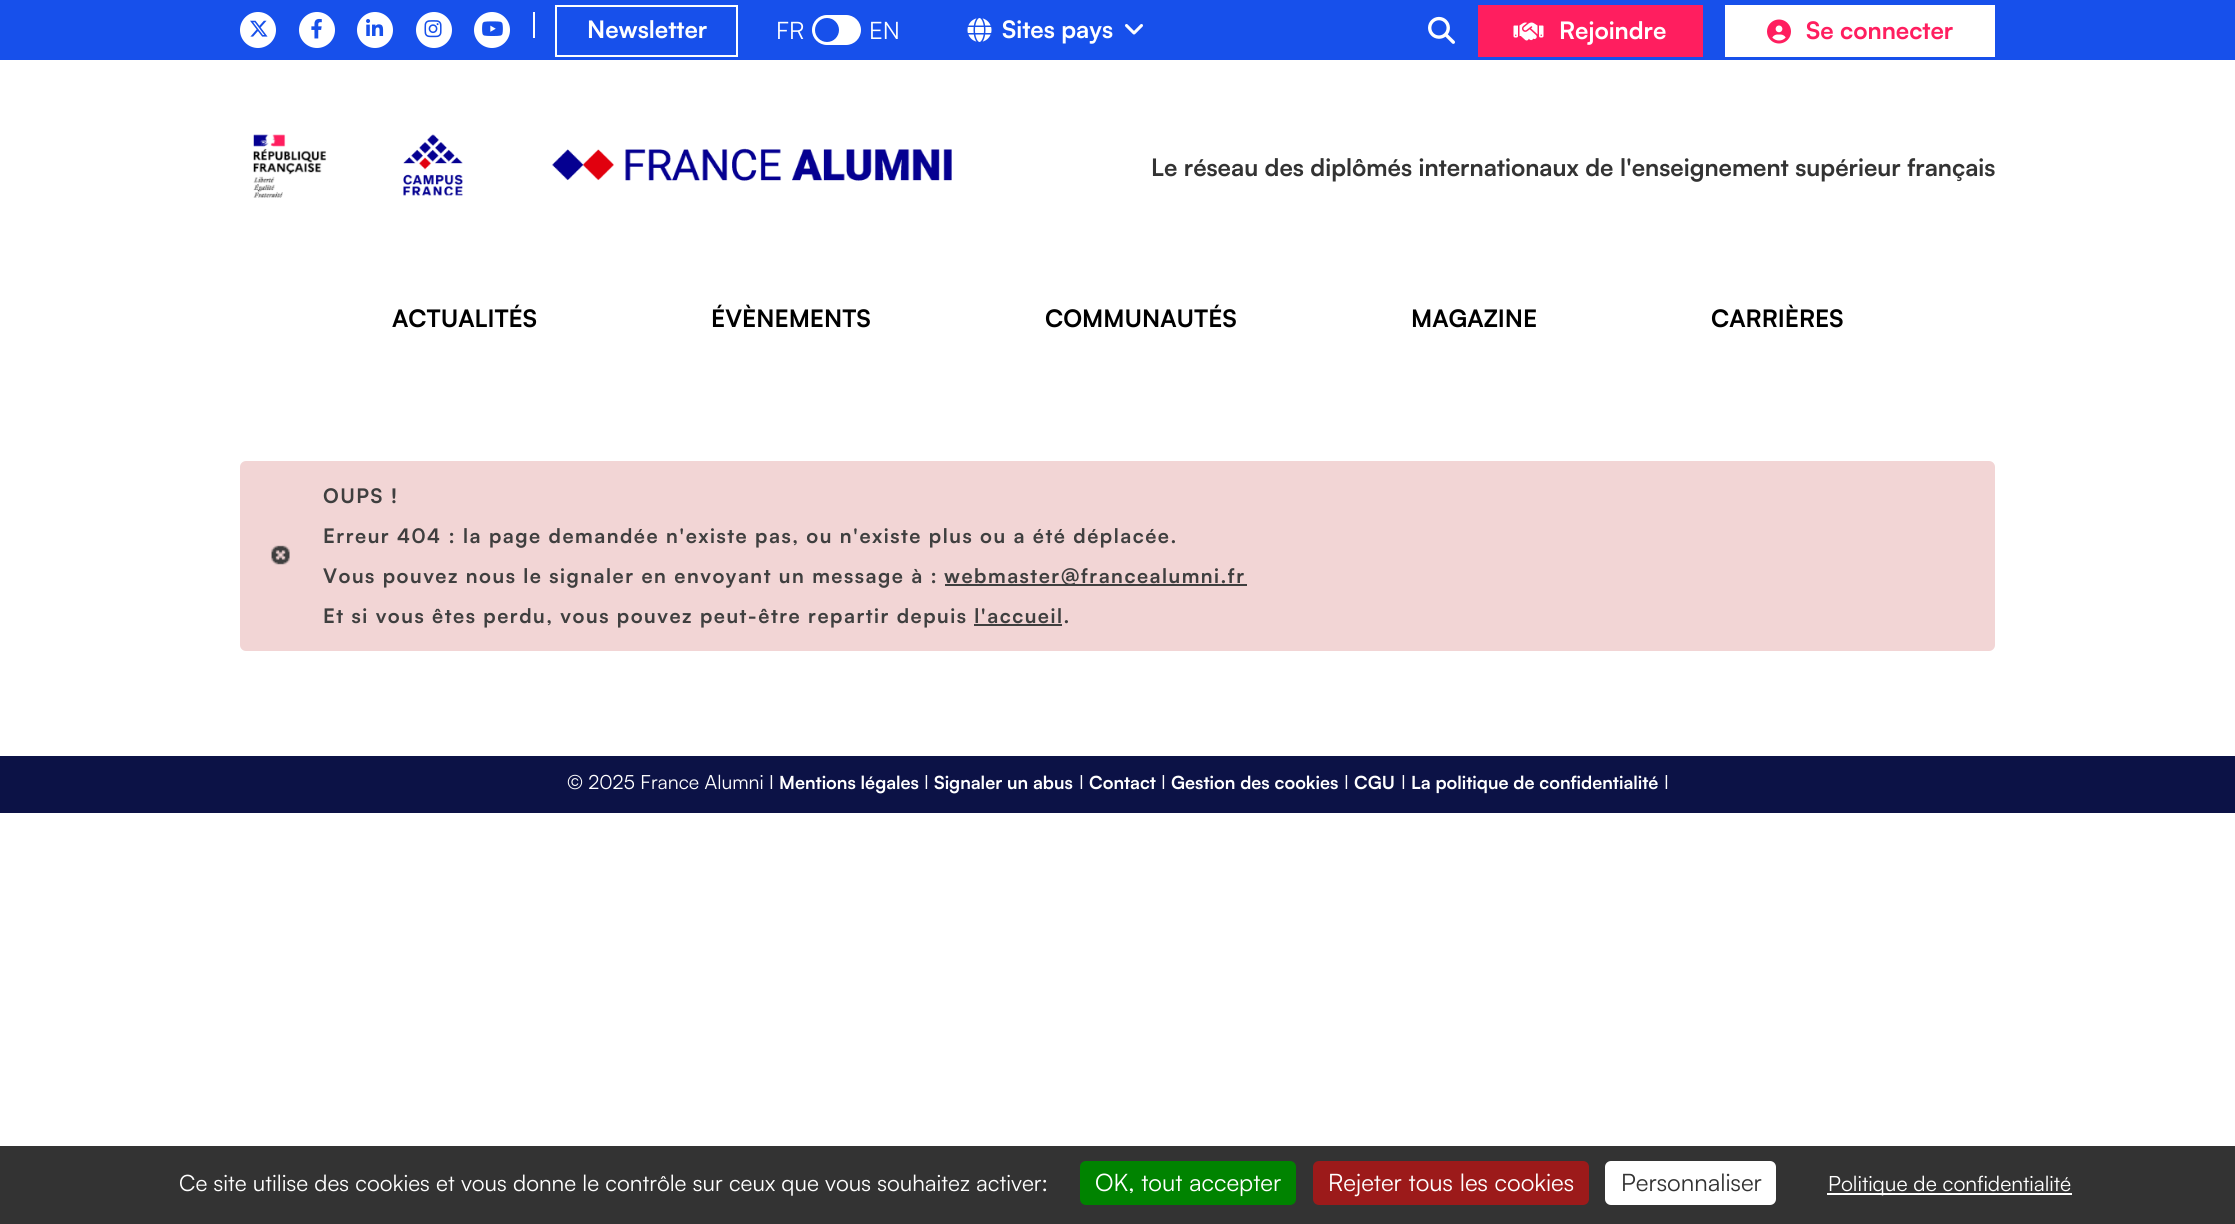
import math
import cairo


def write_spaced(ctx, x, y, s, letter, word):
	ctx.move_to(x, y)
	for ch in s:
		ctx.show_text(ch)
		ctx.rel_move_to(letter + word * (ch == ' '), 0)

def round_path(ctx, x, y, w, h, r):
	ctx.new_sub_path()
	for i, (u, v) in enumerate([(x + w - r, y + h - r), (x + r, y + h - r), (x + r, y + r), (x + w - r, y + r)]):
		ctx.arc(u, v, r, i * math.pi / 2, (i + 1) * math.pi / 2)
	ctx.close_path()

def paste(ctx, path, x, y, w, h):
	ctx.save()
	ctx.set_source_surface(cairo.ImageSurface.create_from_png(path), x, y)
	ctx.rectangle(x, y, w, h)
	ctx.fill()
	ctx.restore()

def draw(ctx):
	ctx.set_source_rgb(1, 1, 1)
	ctx.paint()
	ctx.set_source_rgb(0.09, 0.314, 0.918)
	ctx.rectangle(0, 0, 2235, 60)
	ctx.fill()
	ctx.set_source_rgb(1, 1, 1)
	ctx.arc(258, 30, 18, 0, 2 * math.pi)
	ctx.fill()
	paste(ctx, 'media/1.png', 250, 20, 18, 17)
	ctx.arc(317, 30, 18, 0, 2 * math.pi)
	ctx.fill()
	paste(ctx, 'media/2.png', 311, 18, 11, 21)
	ctx.arc(375, 30, 18, 0, 2 * math.pi)
	ctx.fill()
	paste(ctx, 'media/3.png', 366, 19, 18, 17)
	ctx.arc(434, 30, 18, 0, 2 * math.pi)
	ctx.fill()
	paste(ctx, 'media/4.png', 424, 20, 18, 18)
	ctx.arc(492, 30, 18, 0, 2 * math.pi)
	ctx.fill()
	paste(ctx, 'media/5.png', 482, 21, 21, 15)
	ctx.rectangle(533, 12, 2, 26)
	ctx.fill()
	ctx.rectangle(556, 6, 181, 50)
	ctx.set_source_rgb(0.996, 0.996, 1)
	ctx.stroke()
	ctx.select_font_face('Satoshi', cairo.FONT_SLANT_NORMAL, cairo.FONT_WEIGHT_BOLD)
	ctx.set_font_size(24)
	ctx.set_source_rgb(1, 1, 1)
	ctx.move_to(587, 38)
	ctx.show_text('Newsletter')
	ctx.select_font_face('Satoshi')
	ctx.move_to(776, 39)
	ctx.show_text('FR')
	round_path(ctx, 812, 15, 49, 30, 15)
	ctx.fill()
	ctx.set_source_rgb(0.09, 0.314, 0.918)
	ctx.arc(827, 30, 12, 0, 2 * math.pi)
	ctx.fill()
	ctx.set_source_rgb(1, 1, 1)
	ctx.move_to(869, 39)
	ctx.show_text('EN')
	paste(ctx, 'media/6.png', 967, 18, 25, 24)
	ctx.select_font_face('Satoshi', cairo.FONT_SLANT_NORMAL, cairo.FONT_WEIGHT_BOLD)
	ctx.move_to(1002, 38)
	ctx.show_text('Sites pays')
	paste(ctx, 'media/7.png', 1125, 24, 18, 11)
	paste(ctx, 'media/8.png', 1428, 16, 27, 28)
	ctx.set_source_rgb(1, 0.118, 0.373)
	ctx.rectangle(1478, 5, 225, 52)
	ctx.fill()
	paste(ctx, 'media/9.png', 1513, 22, 31, 19)
	ctx.set_source_rgb(1, 1, 1)
	ctx.move_to(1559, 39)
	ctx.show_text('Rejoindre')
	ctx.rectangle(1725, 5, 270, 52)
	ctx.fill()
	paste(ctx, 'media/10.png', 1767, 19, 24, 25)
	ctx.set_source_rgb(1, 0.118, 0.373)
	ctx.move_to(1806, 39)
	ctx.show_text('Se connecter')
	paste(ctx, 'media/11.png', 253, 134, 699, 64)
	ctx.set_source_rgb(0.2, 0.2, 0.2)
	ctx.move_to(1151, 176)
	ctx.show_text('Le réseau des diplômés internationaux de l\'enseignement supérieur français')
	ctx.set_source_rgb(0, 0, 0)
	for x, y, s in [
		(392, 327, 'ACTUALITÉS'),
		(711, 327, 'ÉVÈNEMENTS'),
		(1045, 327, 'COMMUNAUTÉS'),
		(1411, 327, 'MAGAZINE'),
		(1711, 327, 'CARRIÈRES'),
	]:
		ctx.move_to(x, y)
		ctx.show_text(s)
	ctx.set_source_rgb(0.949, 0.835, 0.835)
	round_path(ctx, 240, 461, 1755, 190, 6)
	ctx.fill()
	paste(ctx, 'media/12.png', 271, 545, 19, 20)
	ctx.set_font_size(20)
	ctx.set_source_rgb(0.247, 0.247, 0.247)
	for x, y, s in [
		(323, 503, 'OUPS !'),
		(323, 543, 'Erreur 404 : la page demandée n\'existe pas, ou n\'existe plus ou a été déplacée.'),
		(323, 583, 'Vous pouvez nous le signaler en envoyant un message à :'),
	]:
		write_spaced(ctx, x, y, s, 1.5, 0)
	ctx.rectangle(945, 584, 302, 2)
	ctx.fill()
	write_spaced(ctx, 944, 583, 'webmaster@francealumni.fr', 1.5, 0)
	write_spaced(ctx, 323, 623, 'Et si vous êtes perdu, vous pouvez peut-être repartir depuis l\'accueil.', 1.5, 0)
	ctx.rectangle(974, 624, 88, 2)
	ctx.fill()
	ctx.set_source_rgb(0.047, 0.071, 0.275)
	ctx.rectangle(0, 756, 2235, 57)
	ctx.fill()
	ctx.select_font_face('Satoshi')
	ctx.set_font_size(19.5)
	ctx.set_source_rgb(1, 1, 1)
	ctx.move_to(567, 789)
	ctx.show_text('© 2025 France Alumni I')
	ctx.select_font_face('Satoshi', cairo.FONT_SLANT_NORMAL, cairo.FONT_WEIGHT_BOLD)
	ctx.set_font_size(18)
	ctx.move_to(779, 789)
	ctx.show_text('Mentions légales')
	ctx.select_font_face('Satoshi')
	ctx.set_font_size(19.5)
	ctx.move_to(924, 789)
	ctx.show_text('I')
	ctx.select_font_face('Satoshi', cairo.FONT_SLANT_NORMAL, cairo.FONT_WEIGHT_BOLD)
	ctx.set_font_size(18)
	ctx.move_to(934, 789)
	ctx.show_text('Signaler un abus')
	ctx.select_font_face('Satoshi')
	ctx.set_font_size(19.5)
	ctx.move_to(1079, 789)
	ctx.show_text('I')
	ctx.select_font_face('Satoshi', cairo.FONT_SLANT_NORMAL, cairo.FONT_WEIGHT_BOLD)
	ctx.set_font_size(18)
	ctx.move_to(1089, 789)
	ctx.show_text('Contact')
	ctx.select_font_face('Satoshi')
	ctx.set_font_size(19.5)
	ctx.move_to(1161, 789)
	ctx.show_text('I')
	ctx.select_font_face('Satoshi', cairo.FONT_SLANT_NORMAL, cairo.FONT_WEIGHT_BOLD)
	ctx.set_font_size(18)
	ctx.move_to(1171, 789)
	ctx.show_text('Gestion des cookies')
	ctx.select_font_face('Satoshi')
	ctx.set_font_size(19.5)
	ctx.move_to(1344, 789)
	ctx.show_text('I')
	ctx.select_font_face('Satoshi', cairo.FONT_SLANT_NORMAL, cairo.FONT_WEIGHT_BOLD)
	ctx.set_font_size(18)
	ctx.move_to(1354, 789)
	ctx.show_text('CGU')
	ctx.select_font_face('Satoshi')
	ctx.set_font_size(19.5)
	ctx.move_to(1401, 789)
	ctx.show_text('I')
	ctx.select_font_face('Satoshi', cairo.FONT_SLANT_NORMAL, cairo.FONT_WEIGHT_BOLD)
	ctx.set_font_size(18)
	ctx.move_to(1411, 789)
	ctx.show_text('La politique de confidentialité')
	ctx.select_font_face('Satoshi')
	ctx.set_font_size(19.5)
	ctx.move_to(1664, 789)
	ctx.show_text('I')
	ctx.set_source_rgb(0.2, 0.2, 0.2)
	ctx.rectangle(0, 1146, 2235, 78)
	ctx.fill()
	ctx.set_font_size(22.5)
	ctx.set_source_rgb(1, 1, 1)
	ctx.move_to(179, 1191)
	ctx.show_text('Ce site utilise des cookies et vous donne le contrôle sur ceux que vous souhaitez activer:')
	ctx.set_source_rgb(0, 0.514, 0)
	round_path(ctx, 1080, 1161, 216, 44, 6)
	ctx.fill()
	ctx.set_font_size(24)
	ctx.set_source_rgb(1, 1, 1)
	ctx.move_to(1095, 1191)
	ctx.show_text('OK, tout accepter')
	ctx.set_source_rgb(0.612, 0.102, 0.102)
	round_path(ctx, 1313, 1161, 276, 44, 6)
	ctx.fill()
	ctx.set_source_rgb(1, 1, 1)
	ctx.move_to(1328, 1191)
	ctx.show_text('Rejeter tous les cookies')
	round_path(ctx, 1605, 1161, 171, 44, 6)
	ctx.fill()
	ctx.set_source_rgb(0.2, 0.2, 0.2)
	ctx.move_to(1621, 1191)
	ctx.show_text('Personnaliser')
	ctx.set_source_rgb(1, 1, 1)
	ctx.rectangle(1827, 1193, 245, 2)
	ctx.fill()
	ctx.set_font_size(21)
	ctx.move_to(1828, 1191)
	ctx.show_text('Politique de confidentialité')


surface = cairo.ImageSurface(cairo.FORMAT_RGB24, 2235, 1224)
ctx = cairo.Context(surface)
options = cairo.FontOptions()
options.set_hint_metrics(cairo.HINT_METRICS_OFF)
options.set_hint_style(cairo.HINT_STYLE_NONE)
ctx.set_font_options(options)
ctx.set_miter_limit(4)
draw(ctx)
surface.write_to_png('image.png')
